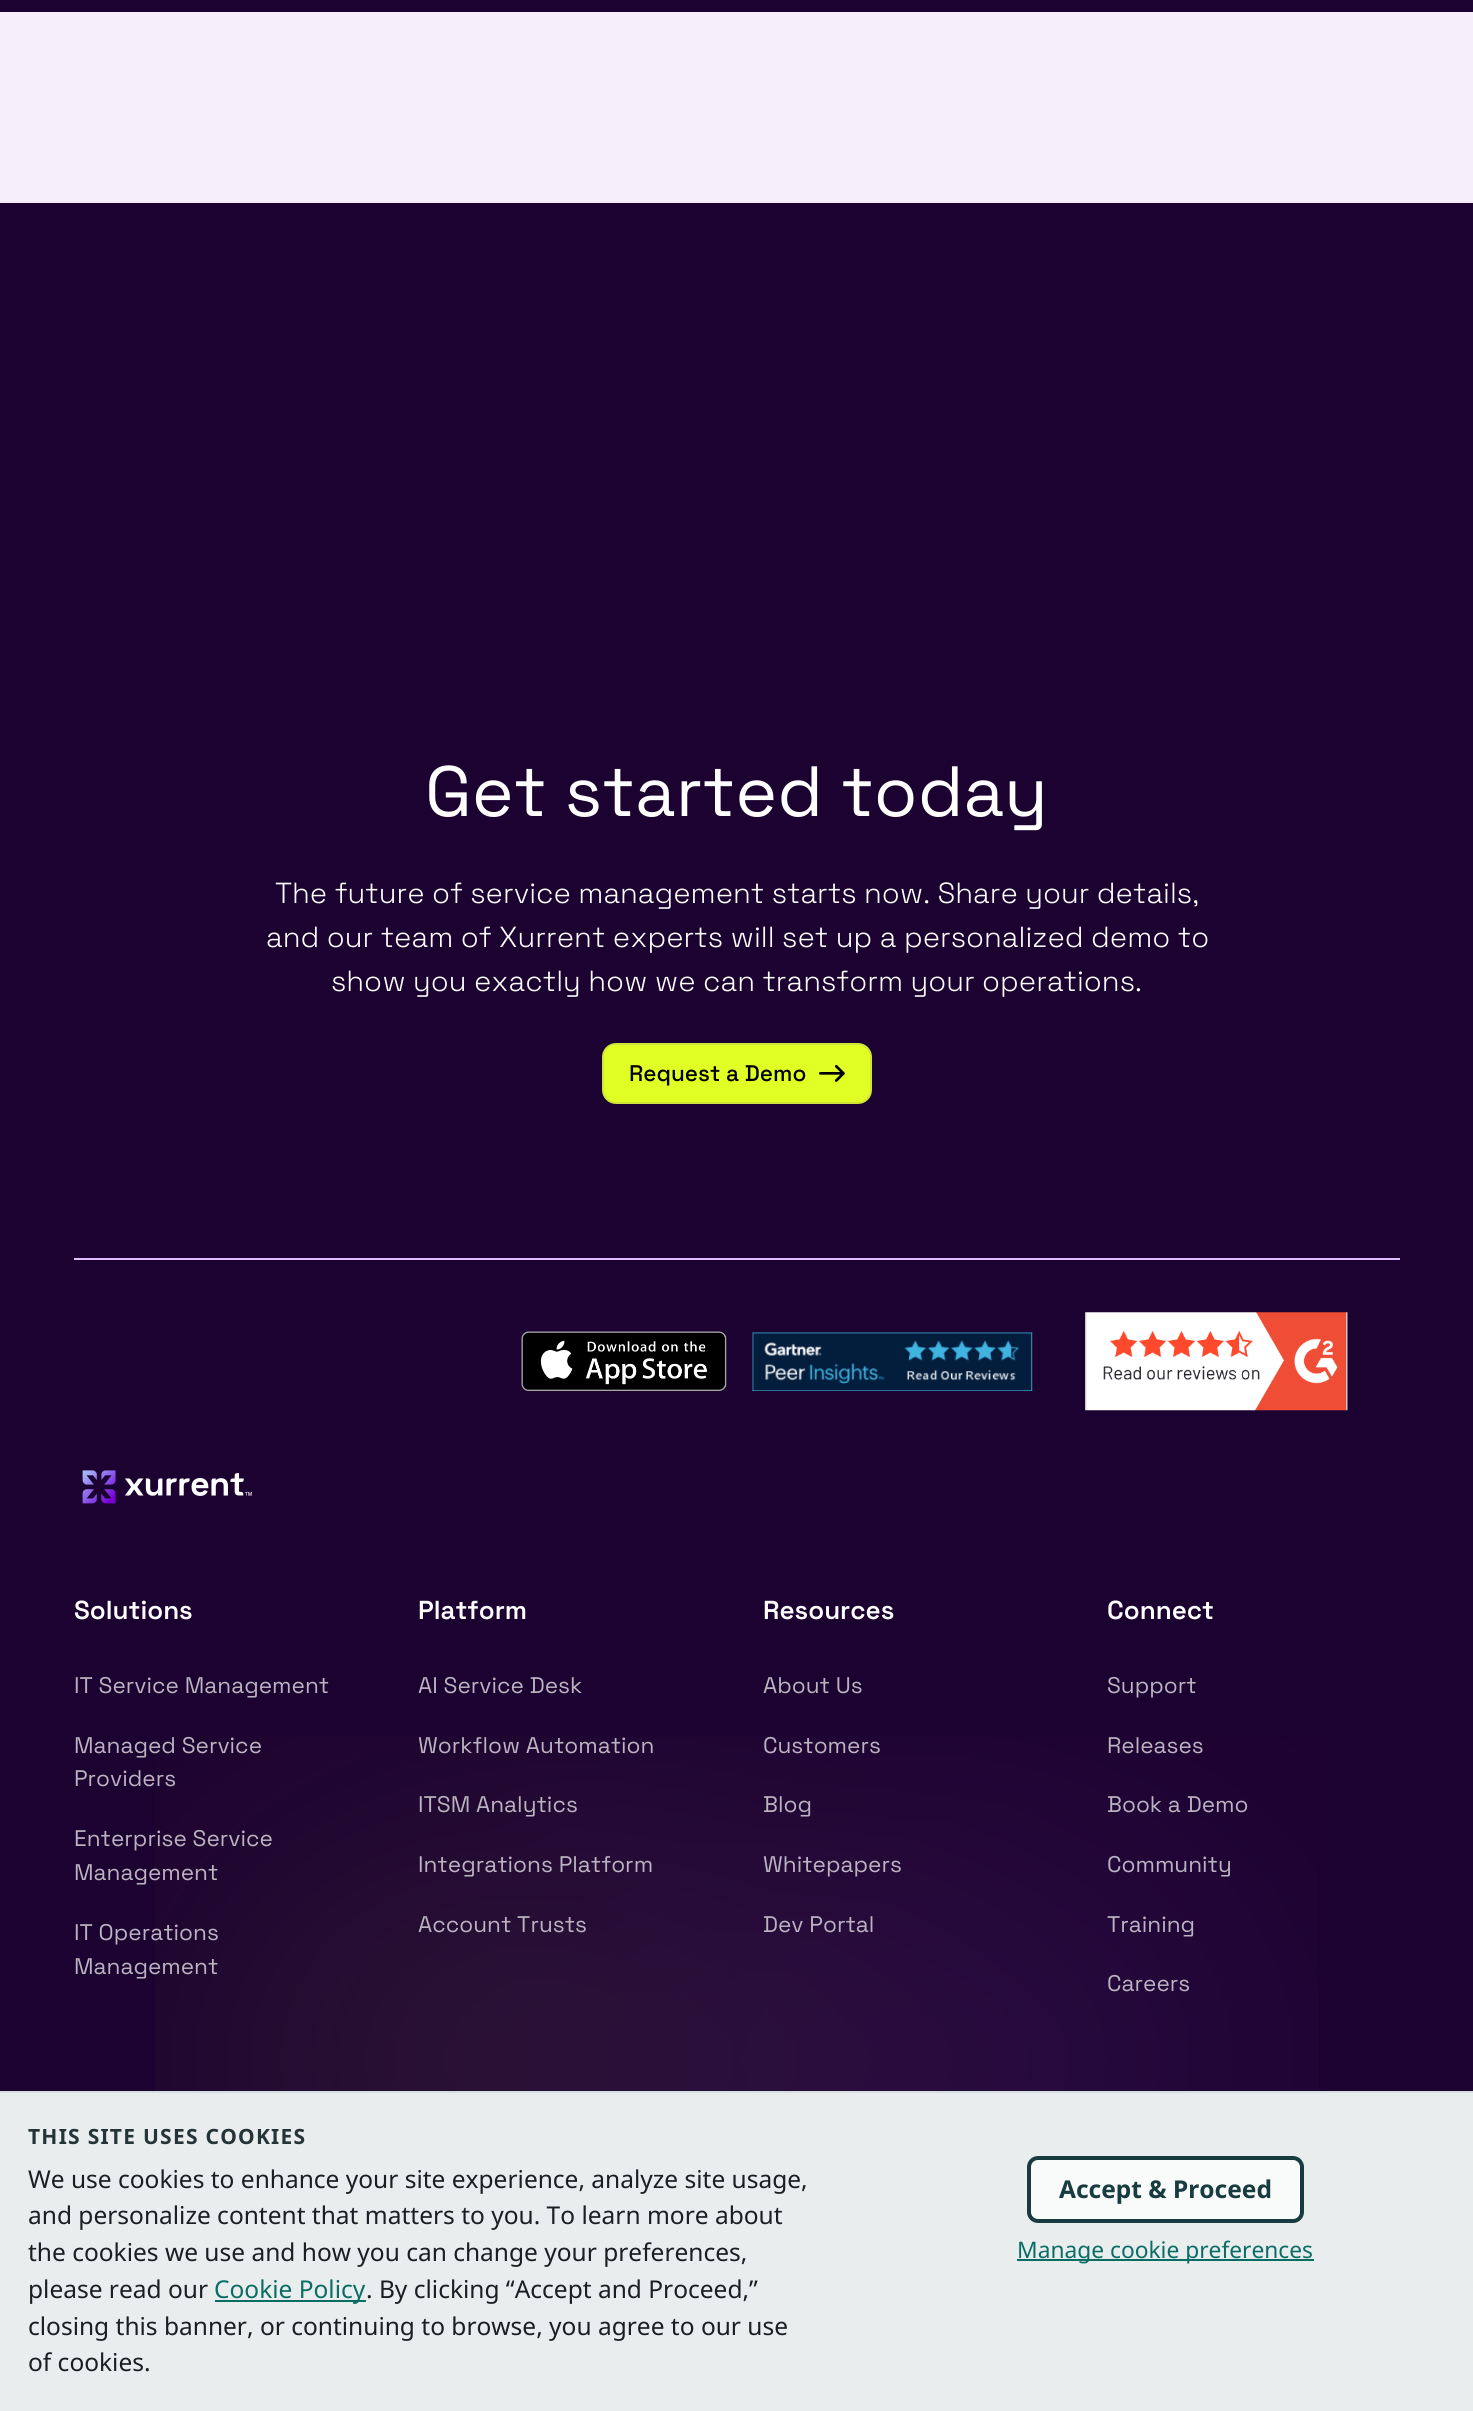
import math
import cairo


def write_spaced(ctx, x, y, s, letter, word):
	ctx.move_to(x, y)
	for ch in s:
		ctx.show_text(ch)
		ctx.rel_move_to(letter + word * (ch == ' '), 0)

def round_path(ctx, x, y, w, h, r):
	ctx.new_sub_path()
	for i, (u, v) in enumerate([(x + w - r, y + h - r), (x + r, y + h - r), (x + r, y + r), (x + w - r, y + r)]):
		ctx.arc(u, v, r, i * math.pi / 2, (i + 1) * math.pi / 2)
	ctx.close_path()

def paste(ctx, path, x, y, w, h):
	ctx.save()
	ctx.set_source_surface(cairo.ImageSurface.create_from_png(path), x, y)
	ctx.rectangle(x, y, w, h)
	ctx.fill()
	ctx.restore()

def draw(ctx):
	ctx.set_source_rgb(0.965, 0.933, 0.984)
	ctx.paint()
	ctx.set_source_rgb(0.11, 0.008, 0.188)
	ctx.rectangle(0, 0, 1473, 12)
	ctx.fill()
	ctx.rectangle(0, 203, 1473, 1888)
	ctx.fill()
	ctx.select_font_face('Space Grotesk Light')
	ctx.set_font_size(71)
	ctx.set_source_rgb(1, 1, 1)
	ctx.move_to(425, 816)
	ctx.show_text('Get started today')
	ctx.select_font_face('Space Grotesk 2 Light')
	ctx.set_font_size(29.05)
	write_spaced(ctx, 275, 903, 'The future of service management starts now. Share your details,', 0, -0.1)
	ctx.move_to(266, 947)
	ctx.show_text('and our team of Xurrent experts will set up a personalized demo to')
	write_spaced(ctx, 331, 991, 'show you exactly how we can transform your operations.', 0, -0.1)
	ctx.set_source_rgb(0.878, 1, 0.145)
	round_path(ctx, 603, 1044, 268, 59, 13)
	ctx.fill_preserve()
	ctx.set_source_rgb(0.804, 0.902, 0.216)
	ctx.stroke()
	ctx.select_font_face('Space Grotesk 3 Light')
	ctx.set_font_size(22.6)
	ctx.set_source_rgb(0, 0, 0)
	ctx.move_to(629, 1081)
	ctx.show_text('Request a Demo')
	paste(ctx, 'media/1.png', 819, 1064, 26, 18)
	ctx.set_source_rgb(0.886, 0.741, 0.996)
	ctx.rectangle(74, 1258, 1326, 2)
	ctx.fill()
	paste(ctx, 'media/2.png', 521, 1331, 206, 60)
	paste(ctx, 'media/3.png', 752, 1332, 281, 59)
	paste(ctx, 'media/4.png', 1085, 1312, 263, 99)
	paste(ctx, 'media/5.png', 82, 1470, 170, 34)
	ctx.select_font_face('Space Grotesk SemiBold')
	ctx.set_font_size(26)
	ctx.set_source_rgb(1, 1, 1)
	ctx.move_to(74, 1619)
	ctx.show_text('Solutions')
	ctx.select_font_face('Space Grotesk Light')
	ctx.set_font_size(22.6)
	ctx.set_source_rgb(0.733, 0.702, 0.757)
	ctx.move_to(74, 1693)
	ctx.show_text('IT Service Management')
	paste(ctx, 'media/6.png', 155, 1736, 1164, 355)
	for x, y, s in [
		(74, 1753, 'Managed Service'),
		(74, 1786, 'Providers'),
		(74, 1846, 'Enterprise Service'),
		(74, 1880, 'Management'),
		(74, 1940, 'IT Operations'),
		(74, 1974, 'Management'),
	]:
		ctx.move_to(x, y)
		ctx.show_text(s)
	ctx.select_font_face('Space Grotesk SemiBold')
	ctx.set_font_size(26)
	ctx.set_source_rgb(1, 1, 1)
	ctx.move_to(418, 1619)
	ctx.show_text('Platform')
	ctx.select_font_face('Space Grotesk Light')
	ctx.set_font_size(22.6)
	ctx.set_source_rgb(0.733, 0.702, 0.757)
	for x, y, s in [
		(418, 1693, 'AI Service Desk'),
		(418, 1753, 'Workflow Automation'),
		(418, 1812, 'ITSM Analytics'),
		(418, 1872, 'Integrations Platform'),
		(418, 1932, 'Account Trusts'),
	]:
		ctx.move_to(x, y)
		ctx.show_text(s)
	ctx.select_font_face('Space Grotesk SemiBold')
	ctx.set_font_size(26)
	ctx.set_source_rgb(1, 1, 1)
	ctx.move_to(763, 1619)
	ctx.show_text('Resources')
	ctx.select_font_face('Space Grotesk Light')
	ctx.set_font_size(22.6)
	ctx.set_source_rgb(0.733, 0.702, 0.757)
	for x, y, s in [
		(763, 1693, 'About Us'),
		(763, 1753, 'Customers'),
		(763, 1812, 'Blog'),
		(763, 1872, 'Whitepapers'),
		(763, 1932, 'Dev Portal'),
	]:
		ctx.move_to(x, y)
		ctx.show_text(s)
	ctx.select_font_face('Space Grotesk SemiBold')
	ctx.set_font_size(26)
	ctx.set_source_rgb(1, 1, 1)
	ctx.move_to(1107, 1619)
	ctx.show_text('Connect')
	ctx.select_font_face('Space Grotesk Light')
	ctx.set_font_size(22.6)
	ctx.set_source_rgb(0.733, 0.702, 0.757)
	for x, y, s in [
		(1107, 1693, 'Support'),
		(1107, 1753, 'Releases'),
		(1107, 1812, 'Book a Demo'),
		(1107, 1872, 'Community'),
		(1107, 1932, 'Training'),
		(1107, 1991, 'Careers'),
	]:
		ctx.move_to(x, y)
		ctx.show_text(s)
	ctx.set_source_rgb(0.914, 0.929, 0.933)
	ctx.rectangle(0, 2093, 1473, 318)
	ctx.fill()
	ctx.set_source_rgb(0.839, 0.867, 0.882)
	ctx.rectangle(0, 2091, 1473, 2)
	ctx.fill()
	ctx.select_font_face('Noto Sans', cairo.FONT_SLANT_NORMAL, cairo.FONT_WEIGHT_BOLD)
	ctx.set_font_size(21)
	ctx.set_source_rgb(0.141, 0.204, 0.22)
	write_spaced(ctx, 28, 2144, 'THIS SITE USES COOKIES', 1.25, 0)
	ctx.select_font_face('Noto Sans')
	ctx.set_font_size(24.5)
	ctx.set_source_rgb(0.102, 0.122, 0.141)
	for x, y, s in [
		(28, 2188, 'We use cookies to enhance your site experience, analyze site usage,'),
		(28, 2224, 'and personalize content that matters to you. To learn more about'),
		(28, 2261, 'the cookies we use and how you can change your preferences,'),
		(28, 2298, 'please read our'),
	]:
		ctx.move_to(x, y)
		ctx.show_text(s)
	ctx.set_source_rgb(0.039, 0.427, 0.392)
	ctx.rectangle(215, 2300, 151, 2)
	ctx.fill()
	ctx.move_to(214, 2298)
	ctx.show_text('Cookie Policy')
	ctx.set_source_rgb(0.102, 0.122, 0.141)
	for x, y, s in [
		(366, 2298, '. By clicking “Accept and Proceed,”'),
		(28, 2335, 'closing this banner, or continuing to browse, you agree to our use'),
		(28, 2371, 'of cookies.'),
	]:
		ctx.move_to(x, y)
		ctx.show_text(s)
	ctx.set_source_rgb(0.973, 0.984, 0.984)
	round_path(ctx, 1029, 2158, 273, 63, 9)
	ctx.fill_preserve()
	ctx.set_source_rgb(0.09, 0.231, 0.247)
	ctx.set_line_width(4)
	ctx.stroke()
	ctx.select_font_face('Noto Sans', cairo.FONT_SLANT_NORMAL, cairo.FONT_WEIGHT_BOLD)
	ctx.move_to(1059, 2198)
	ctx.show_text('Accept & Proceed')
	ctx.set_source_rgb(0.039, 0.427, 0.392)
	ctx.rectangle(1017, 2259, 297, 2)
	ctx.fill()
	ctx.select_font_face('Noto Sans')
	ctx.set_font_size(22.75)
	ctx.move_to(1017, 2258)
	ctx.show_text('Manage cookie preferences')


surface = cairo.ImageSurface(cairo.FORMAT_RGB24, 1473, 2411)
ctx = cairo.Context(surface)
options = cairo.FontOptions()
options.set_hint_metrics(cairo.HINT_METRICS_OFF)
options.set_hint_style(cairo.HINT_STYLE_NONE)
ctx.set_font_options(options)
ctx.set_miter_limit(4)
draw(ctx)
surface.write_to_png('image.png')
